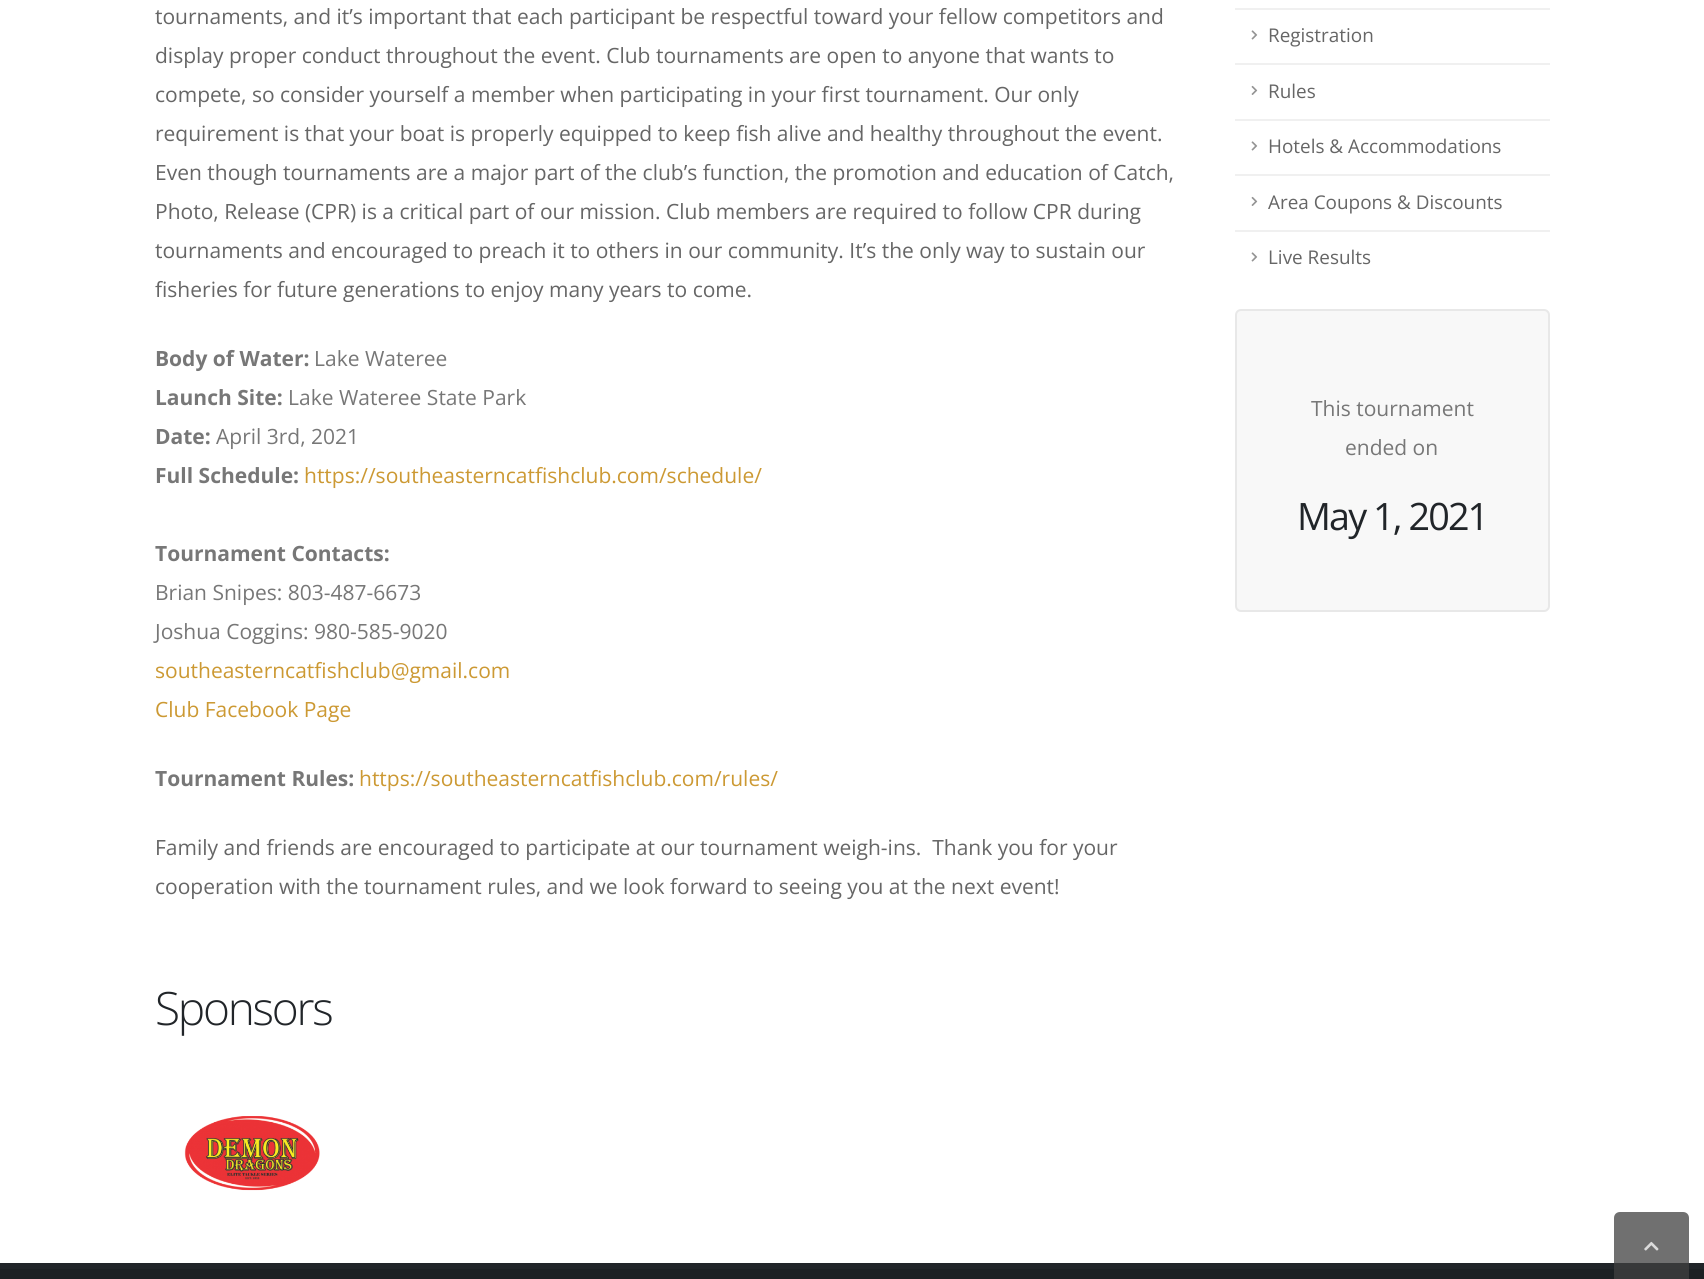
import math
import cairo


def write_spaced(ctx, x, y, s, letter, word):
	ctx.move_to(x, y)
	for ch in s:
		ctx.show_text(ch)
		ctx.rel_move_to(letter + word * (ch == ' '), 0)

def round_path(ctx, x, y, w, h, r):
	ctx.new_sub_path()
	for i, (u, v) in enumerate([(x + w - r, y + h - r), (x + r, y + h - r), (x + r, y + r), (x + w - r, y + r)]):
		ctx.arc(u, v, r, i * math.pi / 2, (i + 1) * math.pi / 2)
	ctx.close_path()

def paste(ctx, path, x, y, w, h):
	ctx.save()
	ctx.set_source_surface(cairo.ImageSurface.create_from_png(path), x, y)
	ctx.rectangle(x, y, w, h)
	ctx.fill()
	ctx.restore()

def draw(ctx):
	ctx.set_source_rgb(1, 1, 1)
	ctx.paint()
	ctx.select_font_face('Open Sans')
	ctx.set_font_size(21)
	ctx.set_source_rgb(0.4, 0.4, 0.4)
	for x, y, s in [
		(155, 24, 'tournaments, and it’s important that each participant be respectful toward your fellow competitors and'),
		(155, 63, 'display proper conduct throughout the event. Club tournaments are open to anyone that wants to'),
		(155, 102, 'compete, so consider yourself a member when participating in your first tournament. Our only'),
		(155, 141, 'requirement is that your boat is properly equipped to keep fish alive and healthy throughout the event.'),
		(155, 180, 'Even though tournaments are a major part of the club’s function, the promotion and education of Catch,'),
		(155, 219, 'Photo, Release (CPR) is a critical part of our mission. Club members are required to follow CPR during'),
		(155, 258, 'tournaments and encouraged to preach it to others in our community. It’s the only way to sustain our'),
		(155, 297, 'fisheries for future generations to enjoy many years to come.'),
	]:
		ctx.move_to(x, y)
		ctx.show_text(s)
	ctx.select_font_face('Open Sans', cairo.FONT_SLANT_NORMAL, cairo.FONT_WEIGHT_BOLD)
	ctx.set_source_rgb(0.467, 0.467, 0.467)
	ctx.move_to(155, 366)
	ctx.show_text('Body of Water:')
	ctx.select_font_face('Open Sans')
	ctx.move_to(314, 366)
	ctx.show_text('Lake Wateree')
	ctx.select_font_face('Open Sans', cairo.FONT_SLANT_NORMAL, cairo.FONT_WEIGHT_BOLD)
	ctx.move_to(155, 405)
	ctx.show_text('Launch Site:')
	ctx.select_font_face('Open Sans')
	ctx.move_to(288, 405)
	ctx.show_text('Lake Wateree State Park')
	ctx.select_font_face('Open Sans', cairo.FONT_SLANT_NORMAL, cairo.FONT_WEIGHT_BOLD)
	ctx.move_to(155, 444)
	ctx.show_text('Date:')
	ctx.select_font_face('Open Sans')
	ctx.move_to(216, 444)
	ctx.show_text('April 3rd, 2021')
	ctx.select_font_face('Open Sans', cairo.FONT_SLANT_NORMAL, cairo.FONT_WEIGHT_BOLD)
	ctx.move_to(155, 483)
	ctx.show_text('Full Schedule:')
	ctx.select_font_face('Open Sans')
	ctx.set_source_rgb(0.8, 0.6, 0.2)
	ctx.move_to(304, 483)
	ctx.show_text('https://southeasterncatfishclub.com/schedule/')
	ctx.select_font_face('Open Sans', cairo.FONT_SLANT_NORMAL, cairo.FONT_WEIGHT_BOLD)
	ctx.set_source_rgb(0.467, 0.467, 0.467)
	ctx.move_to(155, 561)
	ctx.show_text('Tournament Contacts:')
	ctx.select_font_face('Open Sans')
	ctx.move_to(155, 600)
	ctx.show_text('Brian Snipes: 803-487-6673')
	ctx.move_to(155, 639)
	ctx.show_text('Joshua Coggins: 980-585-9020')
	ctx.set_source_rgb(0.8, 0.6, 0.2)
	ctx.move_to(155, 678)
	ctx.show_text('southeasterncatfishclub@gmail.com')
	ctx.move_to(155, 717)
	ctx.show_text('Club Facebook Page')
	ctx.select_font_face('Open Sans', cairo.FONT_SLANT_NORMAL, cairo.FONT_WEIGHT_BOLD)
	ctx.set_source_rgb(0.467, 0.467, 0.467)
	ctx.move_to(155, 786)
	ctx.show_text('Tournament Rules:')
	ctx.select_font_face('Open Sans')
	ctx.set_source_rgb(0.8, 0.6, 0.2)
	ctx.move_to(359, 786)
	ctx.show_text('https://southeasterncatfishclub.com/rules/')
	ctx.set_source_rgb(0.4, 0.4, 0.4)
	ctx.move_to(155, 855)
	ctx.show_text('Family and friends are encouraged to participate at our tournament weigh-ins.  Thank you for your')
	ctx.move_to(155, 894)
	ctx.show_text('cooperation with the tournament rules, and we look forward to seeing you at the next event!')
	ctx.select_font_face('Open Sans Light')
	ctx.set_font_size(46)
	ctx.set_source_rgb(0.129, 0.145, 0.161)
	write_spaced(ctx, 155, 1025, 'Sponsors', -2.25, 0)
	paste(ctx, 'media/1.png', 184, 1116, 136, 75)
	ctx.set_source_rgb(0.941, 0.941, 0.941)
	ctx.rectangle(1235, 8, 315, 2)
	ctx.fill()
	ctx.rectangle(1235, 63, 315, 2)
	ctx.fill()
	paste(ctx, 'media/2.png', 1251, 30, 7, 10)
	ctx.select_font_face('Open Sans')
	ctx.set_font_size(18.9)
	ctx.set_source_rgb(0.4, 0.4, 0.4)
	ctx.move_to(1268, 42)
	ctx.show_text('Registration')
	ctx.set_source_rgb(0.941, 0.941, 0.941)
	ctx.rectangle(1235, 119, 315, 2)
	ctx.fill()
	paste(ctx, 'media/3.png', 1251, 85, 7, 10)
	ctx.set_source_rgb(0.4, 0.4, 0.4)
	ctx.move_to(1268, 98)
	ctx.show_text('Rules')
	ctx.set_source_rgb(0.941, 0.941, 0.941)
	ctx.rectangle(1235, 174, 315, 2)
	ctx.fill()
	paste(ctx, 'media/2.png', 1251, 141, 7, 10)
	ctx.set_source_rgb(0.4, 0.4, 0.4)
	ctx.move_to(1268, 153)
	ctx.show_text('Hotels & Accommodations')
	ctx.set_source_rgb(0.941, 0.941, 0.941)
	ctx.rectangle(1235, 230, 315, 2)
	ctx.fill()
	paste(ctx, 'media/3.png', 1251, 196, 7, 10)
	ctx.set_source_rgb(0.4, 0.4, 0.4)
	ctx.move_to(1268, 209)
	ctx.show_text('Area Coupons & Discounts')
	paste(ctx, 'media/2.png', 1251, 252, 7, 10)
	ctx.move_to(1268, 264)
	ctx.show_text('Live Results')
	ctx.set_source_rgb(0.969, 0.969, 0.969)
	round_path(ctx, 1236, 310, 313, 301, 5)
	ctx.fill_preserve()
	ctx.set_source_rgb(0.91, 0.91, 0.91)
	ctx.stroke()
	ctx.set_font_size(21)
	ctx.set_source_rgb(0.467, 0.467, 0.467)
	ctx.move_to(1311, 416)
	ctx.show_text('This tournament')
	ctx.move_to(1345, 455)
	ctx.show_text('ended on')
	ctx.set_font_size(37.75)
	ctx.set_source_rgb(0.129, 0.145, 0.161)
	write_spaced(ctx, 1297, 530, 'May 1, 2021', -1.9, 0)
	ctx.rectangle(0, 1263, 1704, 6)
	ctx.fill()
	ctx.set_source_rgb(0.11, 0.125, 0.137)
	ctx.rectangle(0, 1269, 1704, 10)
	ctx.fill()
	ctx.set_source_rgba(0.251, 0.251, 0.251, 0.75)
	ctx.new_path()
	ctx.move_to(1620, 1212)
	ctx.line_to(1683, 1212)
	ctx.curve_to(1686.5, 1212, 1689, 1214.5, 1689, 1218)
	ctx.line_to(1689, 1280)
	ctx.line_to(1614, 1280)
	ctx.line_to(1614, 1218)
	ctx.curve_to(1614, 1214.5, 1616.5, 1212, 1620, 1212)
	ctx.close_path()
	ctx.fill()
	paste(ctx, 'media/4.png', 1644, 1241, 15, 10)


surface = cairo.ImageSurface(cairo.FORMAT_RGB24, 1704, 1279)
ctx = cairo.Context(surface)
options = cairo.FontOptions()
options.set_hint_metrics(cairo.HINT_METRICS_OFF)
options.set_hint_style(cairo.HINT_STYLE_NONE)
ctx.set_font_options(options)
ctx.set_miter_limit(4)
draw(ctx)
surface.write_to_png('image.png')
